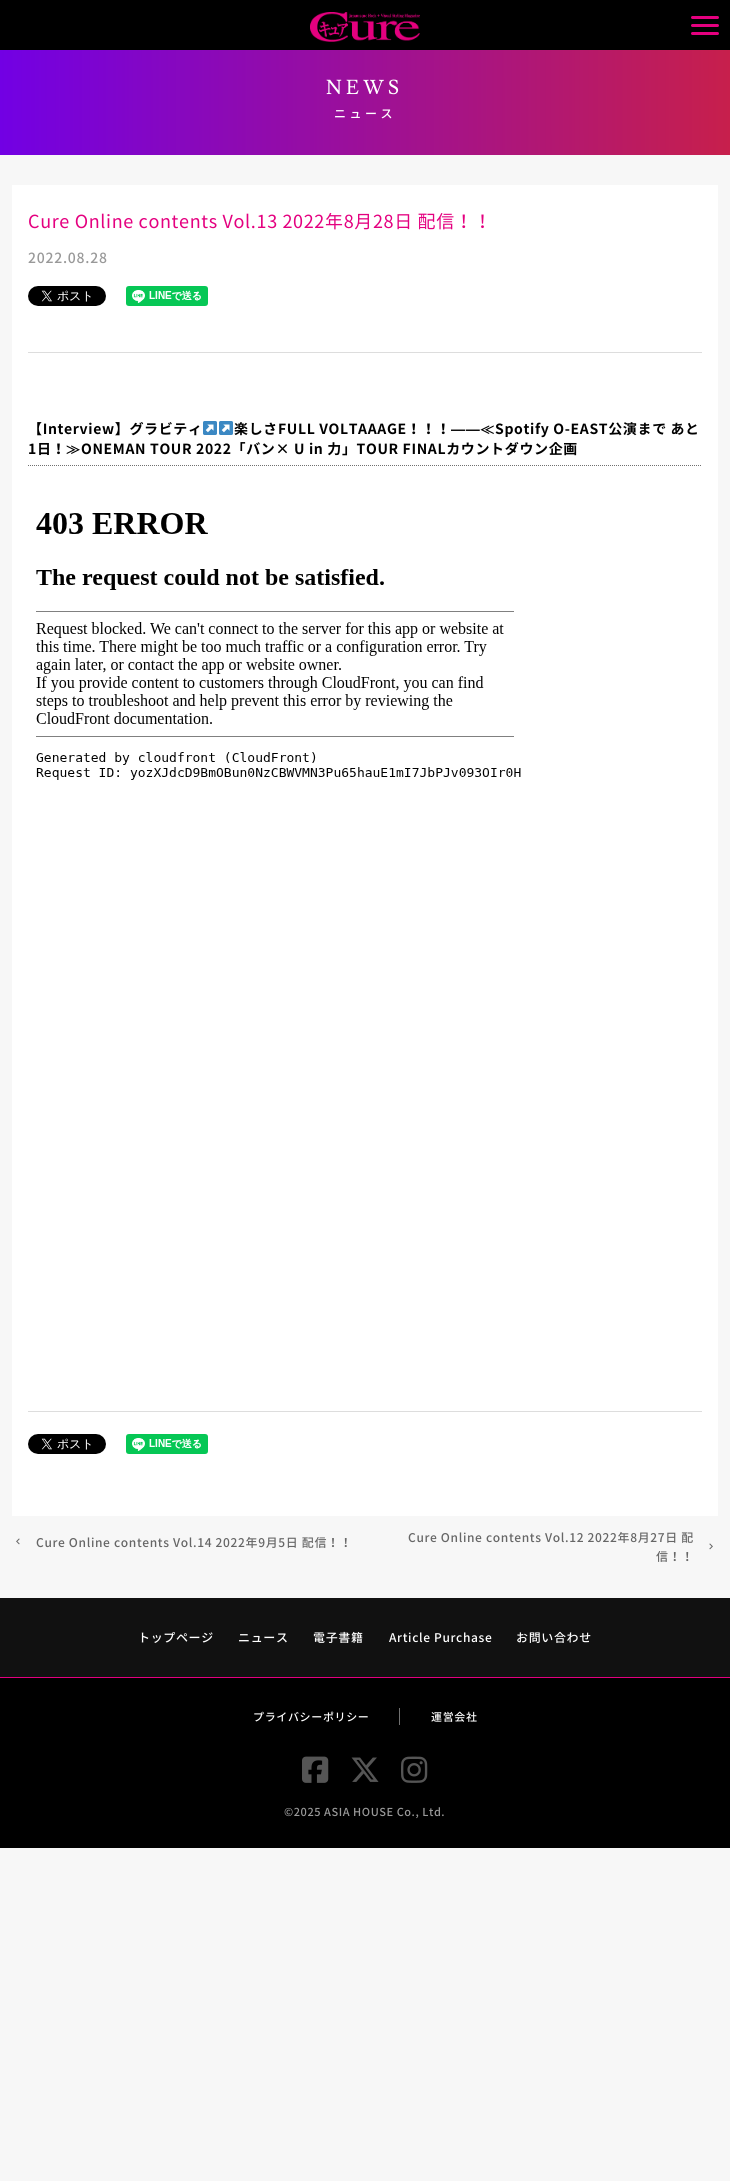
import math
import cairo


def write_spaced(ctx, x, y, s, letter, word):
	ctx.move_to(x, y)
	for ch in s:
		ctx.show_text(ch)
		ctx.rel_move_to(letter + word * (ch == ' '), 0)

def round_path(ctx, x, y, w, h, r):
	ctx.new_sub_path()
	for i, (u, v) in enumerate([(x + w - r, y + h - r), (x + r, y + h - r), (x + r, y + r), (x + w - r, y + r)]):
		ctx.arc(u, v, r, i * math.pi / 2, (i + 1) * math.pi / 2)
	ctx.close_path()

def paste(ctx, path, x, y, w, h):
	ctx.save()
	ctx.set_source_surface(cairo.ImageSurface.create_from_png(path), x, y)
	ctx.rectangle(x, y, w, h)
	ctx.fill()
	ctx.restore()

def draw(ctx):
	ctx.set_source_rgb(0.965, 0.965, 0.965)
	ctx.paint()
	ctx.set_source_rgb(0, 0, 0)
	ctx.rectangle(0, 0, 730, 50)
	ctx.fill()
	paste(ctx, 'media/1.png', 310, 12, 110, 30)
	ctx.set_source_rgb(0.894, 0, 0.498)
	round_path(ctx, 691, 24, 28, 3, 1.5)
	ctx.fill()
	round_path(ctx, 691, 16, 28, 3, 1.5)
	ctx.fill()
	round_path(ctx, 691, 32, 28, 3, 1.5)
	ctx.fill()
	gradient = cairo.LinearGradient(0, 103, 730, 102)
	gradient.add_color_stop_rgba(0, 0.447, 0, 0.894, 1)
	gradient.add_color_stop_rgba(1, 0.78, 0.122, 0.298, 1)
	ctx.set_source(gradient)
	ctx.rectangle(0, 50, 730, 105)
	ctx.fill()
	ctx.select_font_face('Lusitana')
	ctx.set_font_size(20)
	ctx.set_source_rgb(1, 1, 1)
	write_spaced(ctx, 326, 94, 'NEWS', 4, 0)
	ctx.select_font_face('Noto Sans JP Medium')
	ctx.set_font_size(12)
	write_spaced(ctx, 334, 118, 'ニュース', 3.5, 0)
	ctx.rectangle(12, 185, 706, 1331)
	ctx.fill()
	ctx.set_source_rgb(0.867, 0.867, 0.867)
	ctx.rectangle(28, 352, 674, 1)
	ctx.fill()
	ctx.select_font_face('Noto Sans JP')
	ctx.set_font_size(18)
	ctx.set_source_rgb(0.894, 0, 0.498)
	write_spaced(ctx, 28, 228, 'Cure Online contents Vol.13 2022年8月28日 配信！！', 0.65, 0)
	ctx.select_font_face('Noto Sans JP Medium')
	ctx.set_font_size(14)
	ctx.set_source_rgb(0.6, 0.6, 0.6)
	write_spaced(ctx, 28, 263, '2022.08.28', 0.75, 0)
	paste(ctx, 'media/2.png', 28, 286, 78, 20)
	paste(ctx, 'media/3.png', 126, 286, 82, 20)
	ctx.new_path()
	ctx.move_to(28, 465.5)
	ctx.line_to(702, 465.5)
	ctx.set_source_rgb(0.439, 0.439, 0.439)
	ctx.set_line_width(1)
	ctx.set_dash([1, 1])
	ctx.stroke()
	ctx.select_font_face('Noto Sans JP', cairo.FONT_SLANT_NORMAL, cairo.FONT_WEIGHT_BOLD)
	ctx.set_source_rgb(0, 0, 0)
	write_spaced(ctx, 28, 434, '【Interview】グラビティ', 0.65, 0)
	paste(ctx, 'media/4.png', 203, 421, 14, 14)
	paste(ctx, 'media/4.png', 219, 421, 14, 14)
	write_spaced(ctx, 234, 434, '楽しさFULL VOLTAAAGE！！！', 0.65, 0)
	ctx.select_font_face('Liberation Sans', cairo.FONT_SLANT_NORMAL, cairo.FONT_WEIGHT_BOLD)
	write_spaced(ctx, 451, 434, '――', 0.65, 0)
	ctx.select_font_face('WenQuanYi Zen Hei', cairo.FONT_SLANT_NORMAL, cairo.FONT_WEIGHT_BOLD)
	write_spaced(ctx, 480, 434, '≪', 0.65, 0)
	ctx.select_font_face('Noto Sans JP', cairo.FONT_SLANT_NORMAL, cairo.FONT_WEIGHT_BOLD)
	write_spaced(ctx, 495, 434, 'Spotify O-EAST公演まで あと', 0.65, 0)
	write_spaced(ctx, 28, 454, '1日！', 0.65, 0)
	ctx.select_font_face('WenQuanYi Zen Hei', cairo.FONT_SLANT_NORMAL, cairo.FONT_WEIGHT_BOLD)
	write_spaced(ctx, 66, 454, '≫', 0.65, 0)
	ctx.select_font_face('Noto Sans JP', cairo.FONT_SLANT_NORMAL, cairo.FONT_WEIGHT_BOLD)
	write_spaced(ctx, 81, 454, 'ONEMAN TOUR 2022「バン× U in 力」TOUR FINALカウントダウン企画', 0.65, 0)
	paste(ctx, 'media/5.png', 36, 513, 485, 267)
	ctx.set_source_rgb(0.867, 0.867, 0.867)
	ctx.rectangle(28, 1411, 674, 1)
	ctx.fill()
	paste(ctx, 'media/2.png', 28, 1434, 78, 20)
	paste(ctx, 'media/3.png', 126, 1434, 82, 20)
	paste(ctx, 'media/6.png', 16, 1538, 4, 7)
	ctx.select_font_face('Noto Sans JP Medium')
	ctx.set_font_size(12)
	ctx.set_source_rgb(0.4, 0.4, 0.4)
	write_spaced(ctx, 36, 1547, 'Cure Online contents Vol.14 2022年9月5日 配信！！', 0.65, 0)
	write_spaced(ctx, 408, 1542, 'Cure Online contents Vol.12 2022年8月27日 配', 0.65, 0)
	paste(ctx, 'media/7.png', 709, 1543, 4, 7)
	write_spaced(ctx, 656, 1561, '信！！', 0.65, 0)
	ctx.set_source_rgb(0.067, 0.067, 0.067)
	ctx.rectangle(0, 1598, 730, 79)
	ctx.fill()
	ctx.set_source_rgb(0.894, 0, 0.498)
	ctx.rectangle(0, 1677, 730, 1)
	ctx.fill()
	ctx.set_source_rgb(1, 1, 1)
	for x, y, s in [
		(138, 1642, 'トップページ'),
		(238, 1642, 'ニュース'),
		(313, 1642, '電子書籍'),
		(389, 1642, 'Article Purchase'),
		(516, 1642, 'お問い合わせ'),
	]:
		write_spaced(ctx, x, y, s, 0.65, 0)
	ctx.set_source_rgb(0, 0, 0)
	ctx.rectangle(0, 1678, 730, 170)
	ctx.fill()
	ctx.set_source_rgb(0.439, 0.439, 0.439)
	ctx.rectangle(399, 1708, 1, 17)
	ctx.fill()
	ctx.set_font_size(11)
	ctx.set_source_rgb(1, 1, 1)
	write_spaced(ctx, 253, 1721, 'プライバシーポリシー', 0.65, 0)
	write_spaced(ctx, 431, 1721, '運営会社', 0.65, 0)
	paste(ctx, 'media/8.png', 302, 1756, 27, 27)
	paste(ctx, 'media/9.png', 351, 1757, 28, 25)
	paste(ctx, 'media/10.png', 401, 1756, 27, 27)
	ctx.set_source_rgb(0.6, 0.6, 0.6)
	write_spaced(ctx, 284, 1816, '©2025 ASIA HOUSE Co., Ltd.', 0.55, 0)


surface = cairo.ImageSurface(cairo.FORMAT_RGB24, 730, 2181)
ctx = cairo.Context(surface)
options = cairo.FontOptions()
options.set_hint_metrics(cairo.HINT_METRICS_OFF)
options.set_hint_style(cairo.HINT_STYLE_NONE)
ctx.set_font_options(options)
ctx.set_miter_limit(4)
draw(ctx)
surface.write_to_png('image.png')
